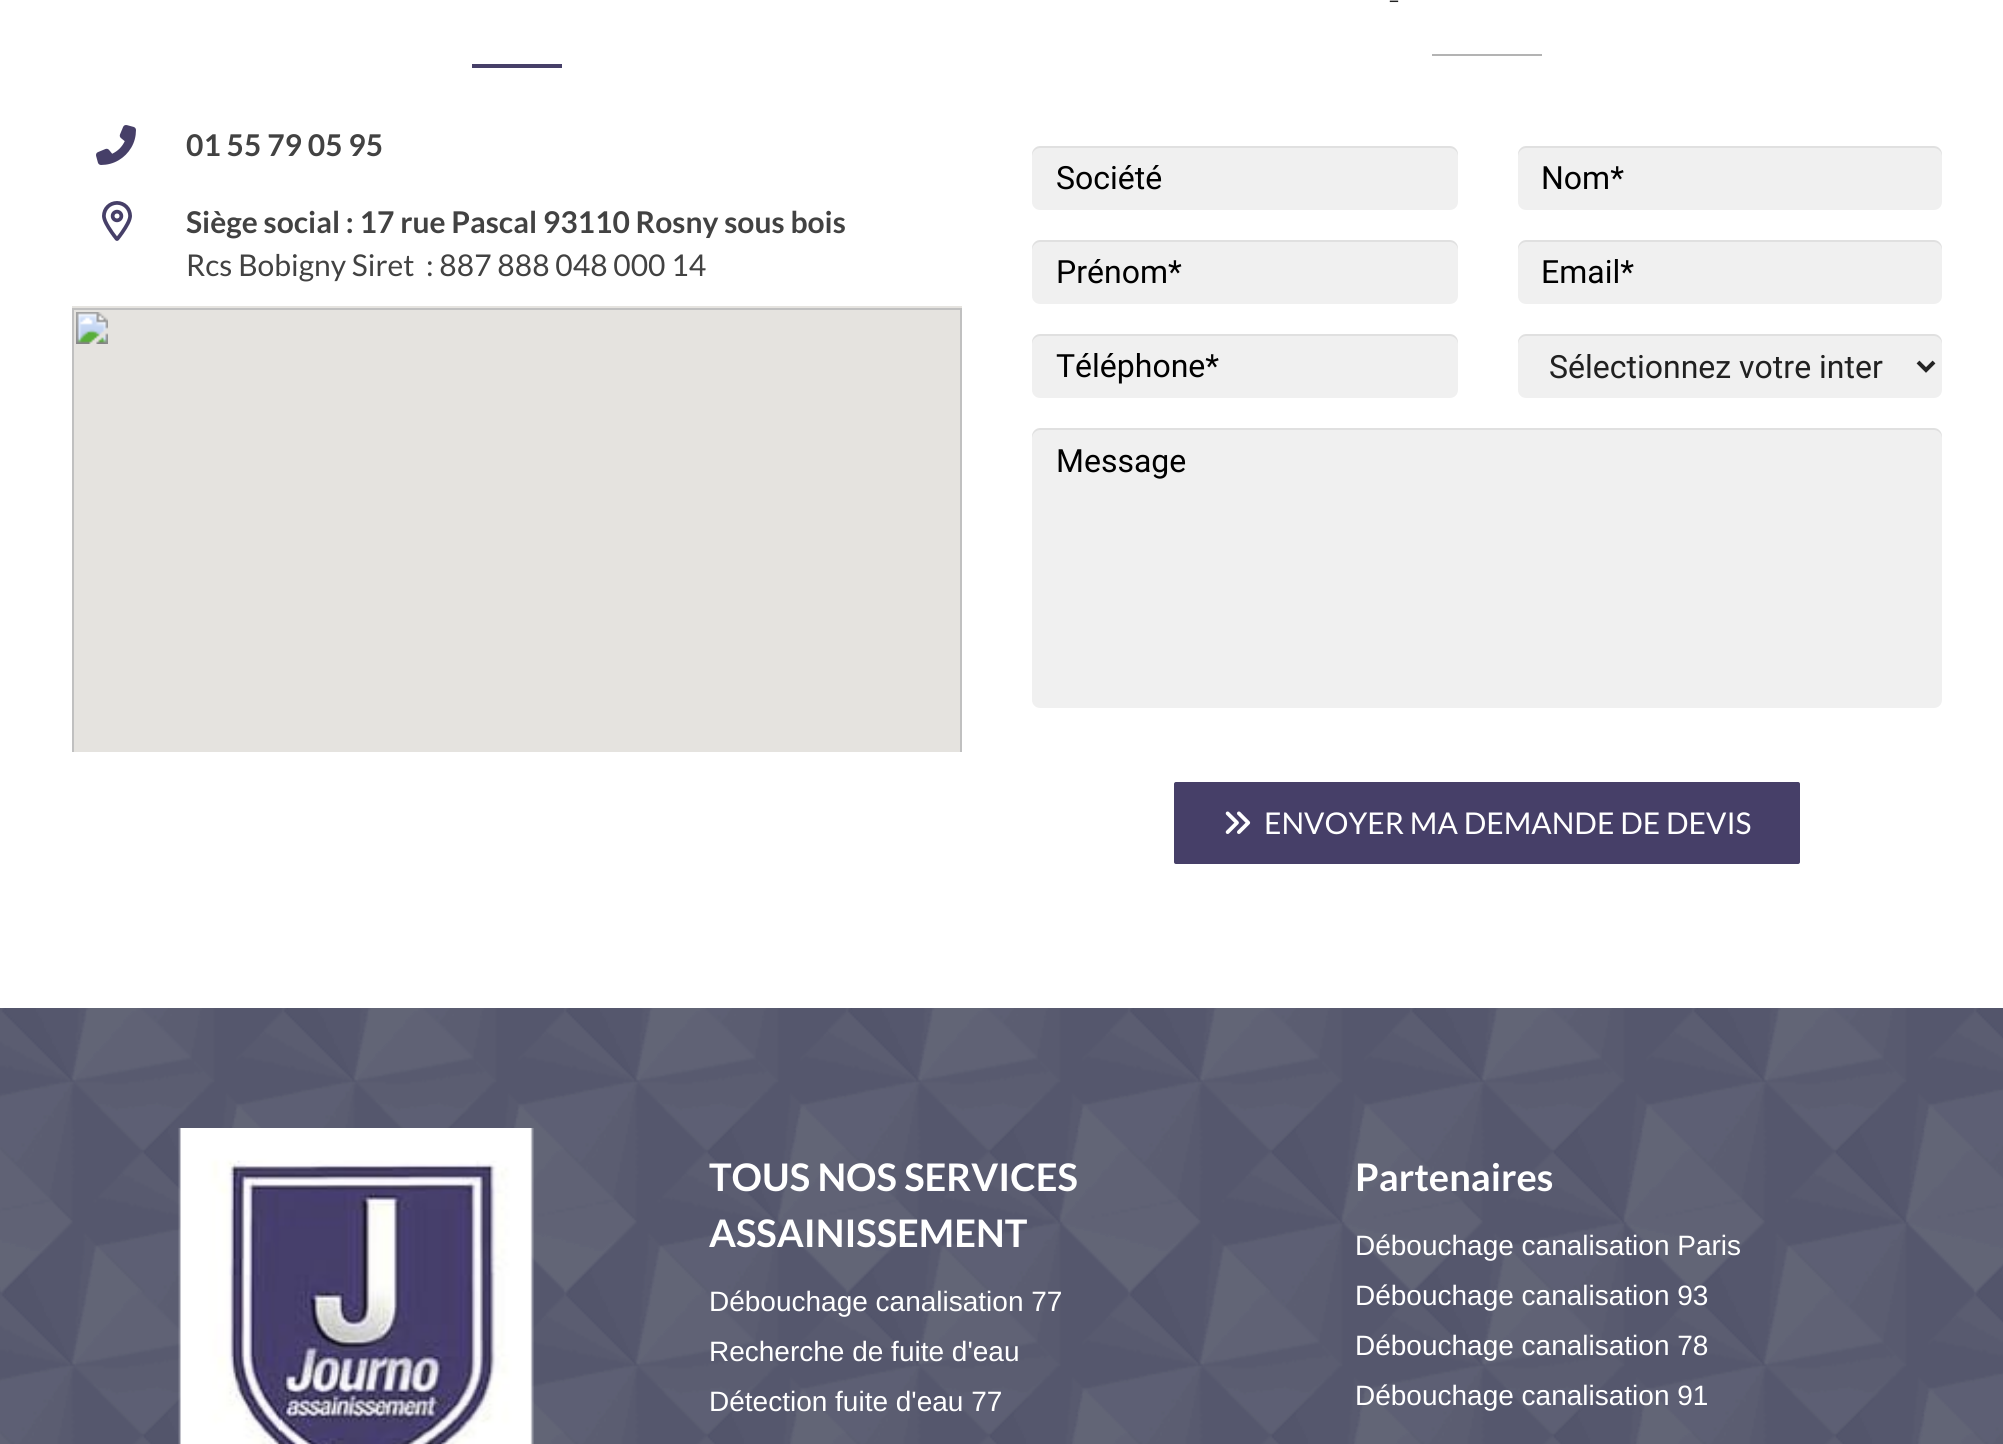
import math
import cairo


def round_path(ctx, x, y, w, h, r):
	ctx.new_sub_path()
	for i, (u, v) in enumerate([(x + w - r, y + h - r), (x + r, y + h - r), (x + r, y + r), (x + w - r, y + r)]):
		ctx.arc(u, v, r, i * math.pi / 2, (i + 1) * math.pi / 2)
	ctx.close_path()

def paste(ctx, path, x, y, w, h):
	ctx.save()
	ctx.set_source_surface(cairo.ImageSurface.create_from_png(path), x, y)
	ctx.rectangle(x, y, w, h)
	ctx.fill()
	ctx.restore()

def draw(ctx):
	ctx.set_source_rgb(1, 1, 1)
	ctx.paint()
	ctx.set_source_rgb(0.275, 0.247, 0.408)
	ctx.rectangle(472, 64, 90, 4)
	ctx.fill()
	paste(ctx, 'media/1.png', 96, 125, 40, 40)
	ctx.select_font_face('Lato', cairo.FONT_SLANT_NORMAL, cairo.FONT_WEIGHT_BOLD)
	ctx.set_font_size(30)
	ctx.set_source_rgb(0.259, 0.259, 0.259)
	ctx.move_to(186, 156)
	ctx.show_text('01 55 79 05 95')
	paste(ctx, 'media/2.png', 102, 201, 30, 40)
	ctx.move_to(186, 233)
	ctx.show_text('Siège social : 17 rue Pascal 93110 Rosny sous bois')
	ctx.select_font_face('Lato')
	ctx.move_to(186, 276)
	ctx.show_text('Rcs Bobigny Siret  : 887 888 048 000 14')
	paste(ctx, 'media/3.png', 72, 306, 890, 446)
	ctx.select_font_face('Lato Light')
	ctx.set_font_size(36)
	ctx.set_source_rgb(0.129, 0.129, 0.129)
	ctx.move_to(1388, 12)
	ctx.show_text('-')
	ctx.set_source_rgb(0.702, 0.702, 0.702)
	ctx.rectangle(1432, 54, 110, 2)
	ctx.fill()
	ctx.set_source_rgb(0.941, 0.941, 0.941)
	round_path(ctx, 1032, 146, 426, 64, 8)
	ctx.fill()
	ctx.set_source_rgba(0, 0, 0, 0.07)
	ctx.new_path()
	ctx.move_to(1040, 148)
	ctx.line_to(1450, 148)
	ctx.curve_to(1454, 148, 1458, 152, 1458, 156)
	ctx.line_to(1458, 154)
	ctx.curve_to(1458, 150, 1454, 146, 1450, 146)
	ctx.line_to(1040, 146)
	ctx.curve_to(1036, 146, 1032, 150, 1032, 154)
	ctx.line_to(1032, 156)
	ctx.curve_to(1032, 152, 1036, 148, 1040, 148)
	ctx.close_path()
	ctx.fill()
	ctx.select_font_face('Roboto')
	ctx.set_font_size(32)
	ctx.set_source_rgb(0, 0, 0)
	ctx.move_to(1056, 189)
	ctx.show_text('Société')
	ctx.set_source_rgb(0.941, 0.941, 0.941)
	round_path(ctx, 1518, 146, 424, 64, 8)
	ctx.fill()
	ctx.set_source_rgba(0, 0, 0, 0.07)
	ctx.new_path()
	ctx.move_to(1526, 148)
	ctx.line_to(1934, 148)
	ctx.curve_to(1938, 148, 1942, 152, 1942, 156)
	ctx.line_to(1942, 154)
	ctx.curve_to(1942, 150, 1938, 146, 1934, 146)
	ctx.line_to(1526, 146)
	ctx.curve_to(1522, 146, 1518, 150, 1518, 154)
	ctx.line_to(1518, 156)
	ctx.curve_to(1518, 152, 1522, 148, 1526, 148)
	ctx.close_path()
	ctx.fill()
	ctx.set_source_rgb(0, 0, 0)
	ctx.move_to(1541, 189)
	ctx.show_text('Nom*')
	ctx.set_source_rgb(0.941, 0.941, 0.941)
	round_path(ctx, 1032, 240, 426, 64, 8)
	ctx.fill()
	ctx.set_source_rgba(0, 0, 0, 0.07)
	ctx.new_path()
	ctx.move_to(1040, 242)
	ctx.line_to(1450, 242)
	ctx.curve_to(1454, 242, 1458, 246, 1458, 250)
	ctx.line_to(1458, 248)
	ctx.curve_to(1458, 244, 1454, 240, 1450, 240)
	ctx.line_to(1040, 240)
	ctx.curve_to(1036, 240, 1032, 244, 1032, 248)
	ctx.line_to(1032, 250)
	ctx.curve_to(1032, 246, 1036, 242, 1040, 242)
	ctx.close_path()
	ctx.fill()
	ctx.set_source_rgb(0, 0, 0)
	ctx.move_to(1056, 283)
	ctx.show_text('Prénom*')
	ctx.set_source_rgb(0.941, 0.941, 0.941)
	round_path(ctx, 1518, 240, 424, 64, 8)
	ctx.fill()
	ctx.set_source_rgba(0, 0, 0, 0.07)
	ctx.new_path()
	ctx.move_to(1526, 242)
	ctx.line_to(1934, 242)
	ctx.curve_to(1938, 242, 1942, 246, 1942, 250)
	ctx.line_to(1942, 248)
	ctx.curve_to(1942, 244, 1938, 240, 1934, 240)
	ctx.line_to(1526, 240)
	ctx.curve_to(1522, 240, 1518, 244, 1518, 248)
	ctx.line_to(1518, 250)
	ctx.curve_to(1518, 246, 1522, 242, 1526, 242)
	ctx.close_path()
	ctx.fill()
	ctx.set_source_rgb(0, 0, 0)
	ctx.move_to(1541, 283)
	ctx.show_text('Email*')
	ctx.set_source_rgb(0.941, 0.941, 0.941)
	round_path(ctx, 1032, 334, 426, 64, 8)
	ctx.fill()
	ctx.set_source_rgba(0, 0, 0, 0.07)
	ctx.new_path()
	ctx.move_to(1040, 336)
	ctx.line_to(1450, 336)
	ctx.curve_to(1454, 336, 1458, 340, 1458, 344)
	ctx.line_to(1458, 342)
	ctx.curve_to(1458, 338, 1454, 334, 1450, 334)
	ctx.line_to(1040, 334)
	ctx.curve_to(1036, 334, 1032, 338, 1032, 342)
	ctx.line_to(1032, 344)
	ctx.curve_to(1032, 340, 1036, 336, 1040, 336)
	ctx.close_path()
	ctx.fill()
	ctx.set_source_rgb(0, 0, 0)
	ctx.move_to(1056, 377)
	ctx.show_text('Téléphone*')
	ctx.set_source_rgb(0.941, 0.941, 0.941)
	round_path(ctx, 1518, 334, 424, 64, 8)
	ctx.fill()
	ctx.set_source_rgba(0, 0, 0, 0.07)
	ctx.new_path()
	ctx.move_to(1526, 336)
	ctx.line_to(1934, 336)
	ctx.curve_to(1938, 336, 1942, 340, 1942, 344)
	ctx.line_to(1942, 342)
	ctx.curve_to(1942, 338, 1938, 334, 1934, 334)
	ctx.line_to(1526, 334)
	ctx.curve_to(1522, 334, 1518, 338, 1518, 342)
	ctx.line_to(1518, 344)
	ctx.curve_to(1518, 340, 1522, 336, 1526, 336)
	ctx.close_path()
	ctx.fill()
	ctx.new_path()
	ctx.move_to(1918, 362)
	ctx.line_to(1926, 370)
	ctx.line_to(1934, 362)
	ctx.set_source_rgb(0.141, 0.141, 0.141)
	ctx.set_line_width(4)
	ctx.stroke()
	ctx.set_source_rgb(0.129, 0.129, 0.129)
	ctx.move_to(1549, 378)
	ctx.show_text('Sélectionnez votre inter')
	ctx.set_source_rgb(0.941, 0.941, 0.941)
	round_path(ctx, 1032, 428, 910, 280, 8)
	ctx.fill()
	ctx.set_source_rgba(0, 0, 0, 0.07)
	ctx.new_path()
	ctx.move_to(1040, 430)
	ctx.line_to(1934, 430)
	ctx.curve_to(1938, 430, 1942, 434, 1942, 438)
	ctx.line_to(1942, 436)
	ctx.curve_to(1942, 432, 1938, 428, 1934, 428)
	ctx.line_to(1040, 428)
	ctx.curve_to(1036, 428, 1032, 432, 1032, 436)
	ctx.line_to(1032, 438)
	ctx.curve_to(1032, 434, 1036, 430, 1040, 430)
	ctx.close_path()
	ctx.fill()
	ctx.set_source_rgb(0, 0, 0)
	ctx.move_to(1056, 472)
	ctx.show_text('Message')
	ctx.set_source_rgb(0.275, 0.247, 0.408)
	round_path(ctx, 1172, 780, 630, 86, 4)
	ctx.fill_preserve()
	ctx.set_source_rgb(1, 1, 1)
	ctx.stroke()
	paste(ctx, 'media/4.png', 1225, 811, 26, 23)
	ctx.select_font_face('Lato')
	ctx.set_font_size(30)
	ctx.move_to(1264, 834)
	ctx.show_text('ENVOYER MA DEMANDE DE DEVIS')
	ctx.set_source_rgb(0.165, 0.165, 0.298)
	ctx.rectangle(0, 1008, 2003, 436)
	ctx.fill()
	paste(ctx, 'media/5.png', 0, 1008, 2003, 436)
	paste(ctx, 'media/6.png', 178, 1128, 356, 316)
	ctx.select_font_face('Lato', cairo.FONT_SLANT_NORMAL, cairo.FONT_WEIGHT_BOLD)
	ctx.set_font_size(38)
	ctx.set_source_rgb(1, 1, 1)
	ctx.move_to(709, 1191)
	ctx.show_text('TOUS NOS SERVICES')
	ctx.move_to(709, 1247)
	ctx.show_text('ASSAINISSEMENT')
	ctx.select_font_face('Liberation Sans')
	ctx.set_font_size(28)
	for x, y, s in [
		(709, 1311, 'Débouchage canalisation 77'),
		(709, 1361, 'Recherche de fuite d\'eau'),
		(709, 1411, 'Détection fuite d\'eau 77'),
	]:
		ctx.move_to(x, y)
		ctx.show_text(s)
	ctx.select_font_face('Lato', cairo.FONT_SLANT_NORMAL, cairo.FONT_WEIGHT_BOLD)
	ctx.set_font_size(38)
	ctx.move_to(1355, 1191)
	ctx.show_text('Partenaires')
	ctx.select_font_face('Liberation Sans')
	ctx.set_font_size(28)
	for x, y, s in [
		(1355, 1255, 'Débouchage canalisation Paris'),
		(1355, 1305, 'Débouchage canalisation 93'),
		(1355, 1355, 'Débouchage canalisation 78'),
		(1355, 1405, 'Débouchage canalisation 91'),
	]:
		ctx.move_to(x, y)
		ctx.show_text(s)


surface = cairo.ImageSurface(cairo.FORMAT_RGB24, 2003, 1444)
ctx = cairo.Context(surface)
options = cairo.FontOptions()
options.set_hint_metrics(cairo.HINT_METRICS_OFF)
options.set_hint_style(cairo.HINT_STYLE_NONE)
ctx.set_font_options(options)
ctx.set_miter_limit(4)
draw(ctx)
surface.write_to_png('image.png')
